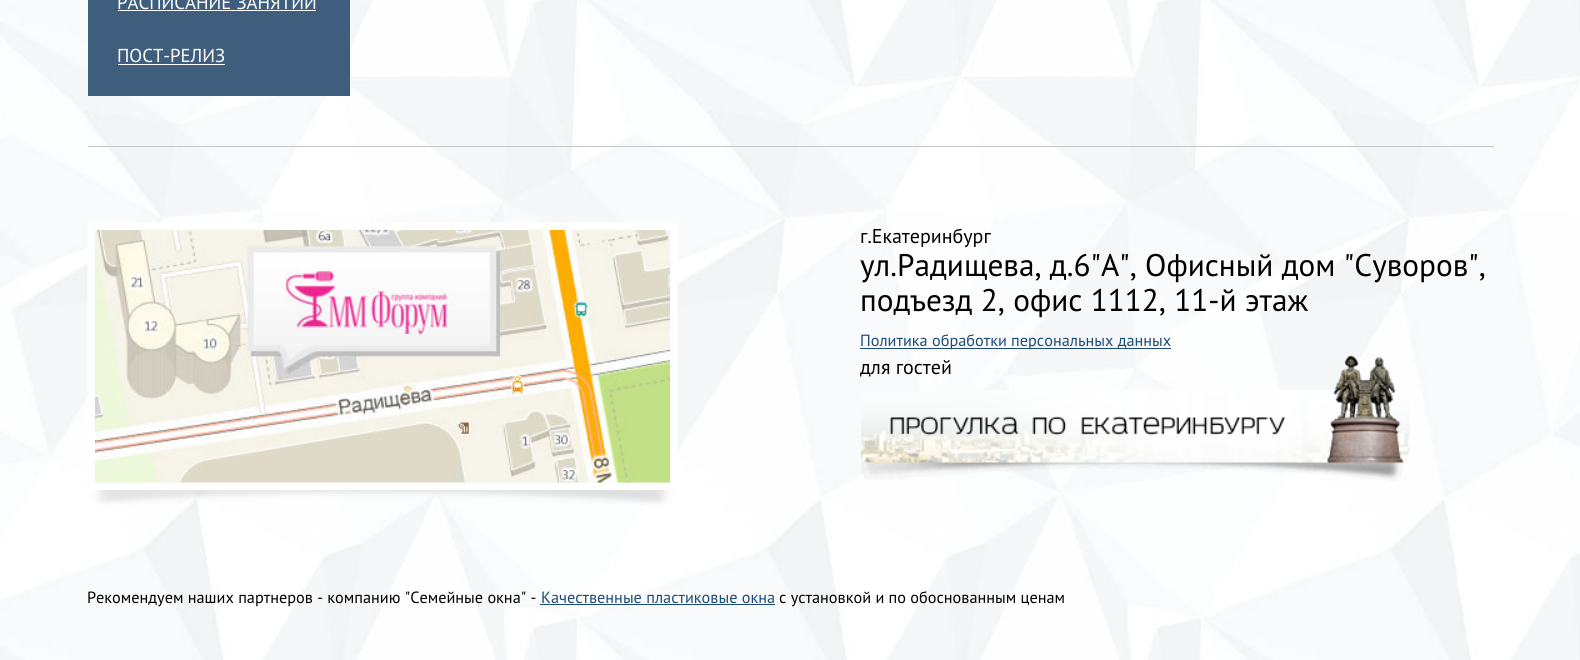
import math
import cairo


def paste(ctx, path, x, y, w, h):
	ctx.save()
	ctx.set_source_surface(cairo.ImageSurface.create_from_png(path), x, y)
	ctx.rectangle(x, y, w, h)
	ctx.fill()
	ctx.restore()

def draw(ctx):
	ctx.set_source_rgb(1, 1, 1)
	ctx.paint()
	paste(ctx, 'media/1.png', 0, 0, 1580, 660)
	ctx.set_source_rgb(0.247, 0.365, 0.49)
	ctx.rectangle(88, 0, 262, 96)
	ctx.fill()
	ctx.select_font_face('PT Sans')
	ctx.set_font_size(18.75)
	ctx.set_source_rgb(1, 1, 1)
	ctx.move_to(117, 9)
	ctx.show_text('РАСПИСАНИЕ ЗАНЯТИЙ')
	ctx.rectangle(118, 10, 198, 1)
	ctx.fill()
	ctx.move_to(117, 62)
	ctx.show_text('ПОСТ-РЕЛИЗ')
	ctx.rectangle(118, 64, 107, 1)
	ctx.fill()
	ctx.set_source_rgb(0.773, 0.773, 0.773)
	ctx.rectangle(88, 146, 1406, 1)
	ctx.fill()
	paste(ctx, 'media/2.png', 87, 222, 591, 283)
	paste(ctx, 'media/3.png', 95, 230, 575, 253)
	ctx.set_font_size(20)
	ctx.set_source_rgb(0, 0, 0)
	ctx.move_to(860, 243)
	ctx.show_text('г.Екатеринбург')
	ctx.set_font_size(31.25)
	ctx.move_to(860, 276)
	ctx.show_text('ул.Радищева, д.6"А", Офисный дом "Суворов",')
	ctx.move_to(860, 311)
	ctx.show_text('подъезд 2, офис 1112, 11-й этаж')
	ctx.set_source_rgb(0.114, 0.294, 0.471)
	ctx.rectangle(860, 348, 311, 1)
	ctx.fill()
	ctx.set_font_size(16.25)
	ctx.move_to(860, 346)
	ctx.show_text('Политика обработки персональных данных')
	paste(ctx, 'media/4.png', 861, 355, 549, 126)
	ctx.set_font_size(20)
	ctx.set_source_rgb(0, 0, 0)
	ctx.move_to(860, 374)
	ctx.show_text('для гостей')
	ctx.set_font_size(16.25)
	ctx.move_to(87, 603)
	ctx.show_text('Рекомендуем наших партнеров - компанию "Семейные окна" -')
	ctx.set_source_rgb(0.114, 0.294, 0.471)
	ctx.move_to(541, 603)
	ctx.show_text('Качественные пластиковые окна')
	ctx.rectangle(540, 604, 235, 1)
	ctx.fill()
	ctx.set_source_rgb(0, 0, 0)
	ctx.move_to(779, 603)
	ctx.show_text('с установкой и по обоснованным ценам')


surface = cairo.ImageSurface(cairo.FORMAT_RGB24, 1580, 660)
ctx = cairo.Context(surface)
options = cairo.FontOptions()
options.set_hint_metrics(cairo.HINT_METRICS_OFF)
options.set_hint_style(cairo.HINT_STYLE_NONE)
ctx.set_font_options(options)
ctx.set_miter_limit(4)
draw(ctx)
surface.write_to_png('image.png')
